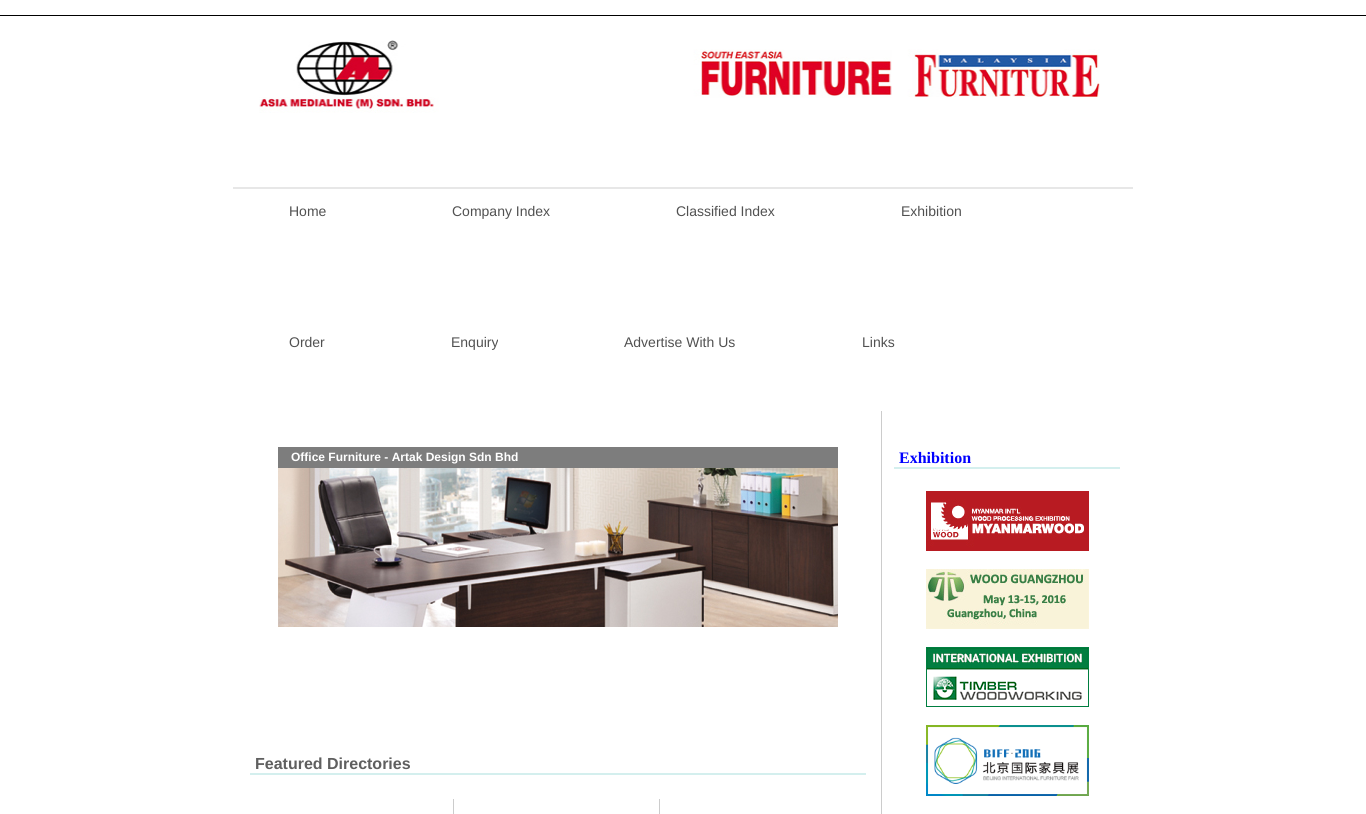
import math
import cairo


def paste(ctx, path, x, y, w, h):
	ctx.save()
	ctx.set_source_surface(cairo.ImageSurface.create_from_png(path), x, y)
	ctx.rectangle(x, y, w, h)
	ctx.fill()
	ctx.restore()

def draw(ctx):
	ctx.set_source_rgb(1, 1, 1)
	ctx.paint()
	ctx.set_source_rgb(0, 0, 0)
	ctx.rectangle(0, 15, 1366, 1)
	ctx.fill()
	paste(ctx, 'media/1.png', 259, 40, 841, 73)
	ctx.set_source_rgb(0.906, 0.906, 0.906)
	ctx.rectangle(233, 187, 900, 2)
	ctx.fill()
	ctx.select_font_face('Liberation Sans')
	ctx.set_font_size(14)
	ctx.set_source_rgb(0.318, 0.318, 0.318)
	for x, y, s in [
		(289, 216, 'Home'),
		(452, 216, 'Company Index'),
		(676, 216, 'Classified Index'),
		(901, 216, 'Exhibition'),
		(289, 347, 'Order'),
		(451, 347, 'Enquiry'),
		(624, 347, 'Advertise With Us'),
		(862, 347, 'Links'),
	]:
		ctx.move_to(x, y)
		ctx.show_text(s)
	ctx.set_source_rgb(0.8, 0.8, 0.8)
	ctx.rectangle(881, 411, 1, 403)
	ctx.fill()
	ctx.set_source_rgb(0.49, 0.49, 0.49)
	ctx.rectangle(278, 447, 560, 21)
	ctx.fill()
	ctx.select_font_face('Liberation Sans', cairo.FONT_SLANT_NORMAL, cairo.FONT_WEIGHT_BOLD)
	ctx.set_font_size(12)
	ctx.set_source_rgb(1, 1, 1)
	ctx.move_to(291, 461)
	ctx.show_text('Office Furniture - Artak Design Sdn Bhd')
	paste(ctx, 'media/2.png', 278, 468, 560, 159)
	ctx.set_source_rgb(0.831, 0.937, 0.933)
	ctx.rectangle(250, 773, 616, 2)
	ctx.fill()
	ctx.set_font_size(16)
	ctx.set_source_rgb(0.373, 0.373, 0.373)
	ctx.move_to(255, 769)
	ctx.show_text('Featured Directories')
	ctx.set_source_rgb(0.8, 0.8, 0.8)
	ctx.rectangle(453, 799, 1, 15)
	ctx.rectangle(659, 799, 1, 15)
	ctx.fill()
	ctx.set_source_rgb(0.831, 0.937, 0.933)
	ctx.rectangle(894, 467, 226, 2)
	ctx.fill()
	ctx.select_font_face('Liberation Serif', cairo.FONT_SLANT_NORMAL, cairo.FONT_WEIGHT_BOLD)
	ctx.set_source_rgb(0, 0, 1)
	ctx.move_to(899, 463)
	ctx.show_text('Exhibition')
	paste(ctx, 'media/3.png', 926, 491, 163, 60)
	paste(ctx, 'media/4.png', 926, 569, 163, 60)
	paste(ctx, 'media/5.png', 926, 647, 163, 60)
	paste(ctx, 'media/6.png', 926, 725, 163, 71)


surface = cairo.ImageSurface(cairo.FORMAT_RGB24, 1366, 814)
ctx = cairo.Context(surface)
options = cairo.FontOptions()
options.set_hint_metrics(cairo.HINT_METRICS_OFF)
options.set_hint_style(cairo.HINT_STYLE_NONE)
ctx.set_font_options(options)
ctx.set_miter_limit(4)
draw(ctx)
surface.write_to_png('image.png')
